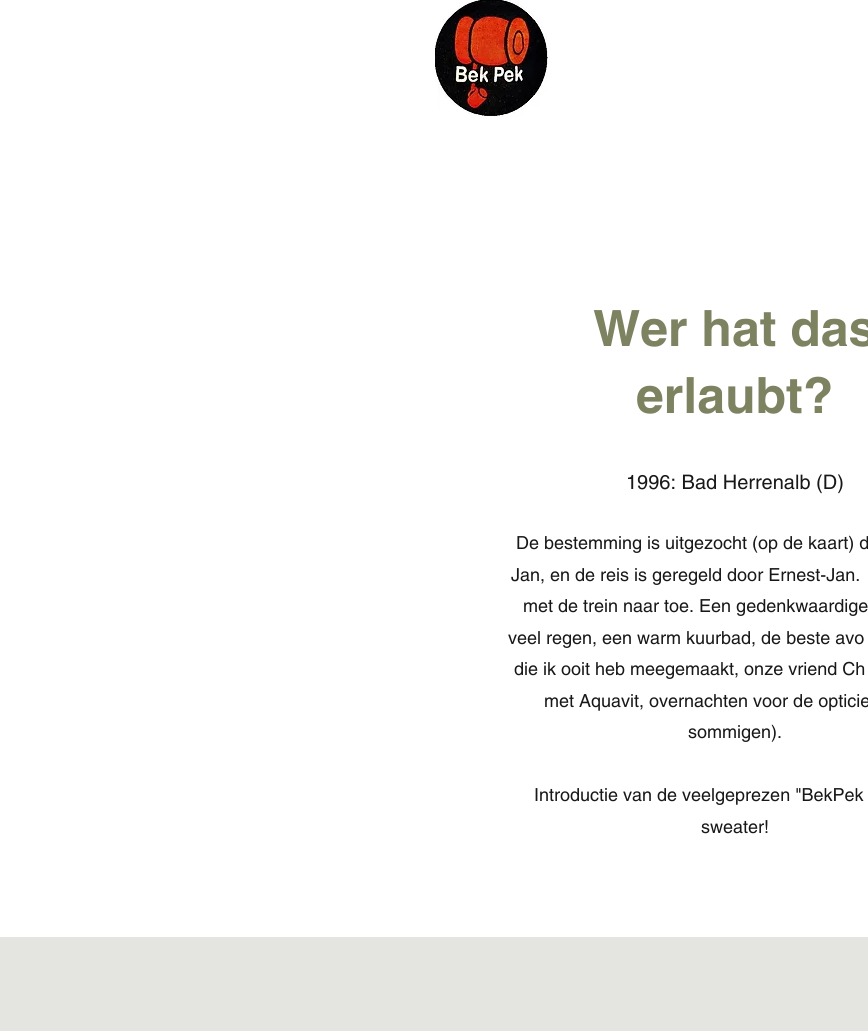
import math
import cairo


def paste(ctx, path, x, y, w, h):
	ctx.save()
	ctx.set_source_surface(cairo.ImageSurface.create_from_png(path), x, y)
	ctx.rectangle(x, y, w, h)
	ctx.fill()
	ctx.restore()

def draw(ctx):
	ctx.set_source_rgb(1, 1, 1)
	ctx.paint()
	paste(ctx, 'media/1.png', 435, 0, 113, 117)
	ctx.select_font_face('helvetica', cairo.FONT_SLANT_NORMAL, cairo.FONT_WEIGHT_BOLD)
	ctx.set_font_size(50)
	ctx.set_source_rgb(0.49, 0.51, 0.376)
	ctx.move_to(593, 346)
	ctx.show_text('Wer hat das')
	ctx.move_to(636, 413)
	ctx.show_text('erlaubt?')
	ctx.select_font_face('helvetica')
	ctx.set_font_size(20)
	ctx.set_source_rgb(0.094, 0.094, 0.094)
	ctx.move_to(626, 489)
	ctx.show_text('1996: Bad Herrenalb (D)')
	ctx.set_font_size(18)
	for x, y, s in [
		(516, 549, 'De bestemming is uitgezocht (op de kaart) d'),
		(511, 581, 'Jan, en de reis is geregeld door Ernest-Jan.'),
		(523, 612, 'met de trein naar toe. Een gedenkwaardige'),
		(508, 644, 'veel regen, een warm kuurbad, de beste avo'),
		(514, 675, 'die ik ooit heb meegemaakt, onze vriend Ch'),
		(544, 707, 'met Aquavit, overnachten voor de opticie'),
		(688, 738, 'sommigen).'),
		(534, 801, 'Introductie van de veelgeprezen "BekPek'),
		(701, 833, 'sweater!'),
	]:
		ctx.move_to(x, y)
		ctx.show_text(s)
	ctx.set_source_rgb(0.894, 0.894, 0.882)
	ctx.rectangle(0, 937, 868, 94)
	ctx.fill()


surface = cairo.ImageSurface(cairo.FORMAT_RGB24, 868, 1031)
ctx = cairo.Context(surface)
options = cairo.FontOptions()
options.set_hint_metrics(cairo.HINT_METRICS_OFF)
options.set_hint_style(cairo.HINT_STYLE_NONE)
ctx.set_font_options(options)
ctx.set_miter_limit(4)
draw(ctx)
surface.write_to_png('image.png')
